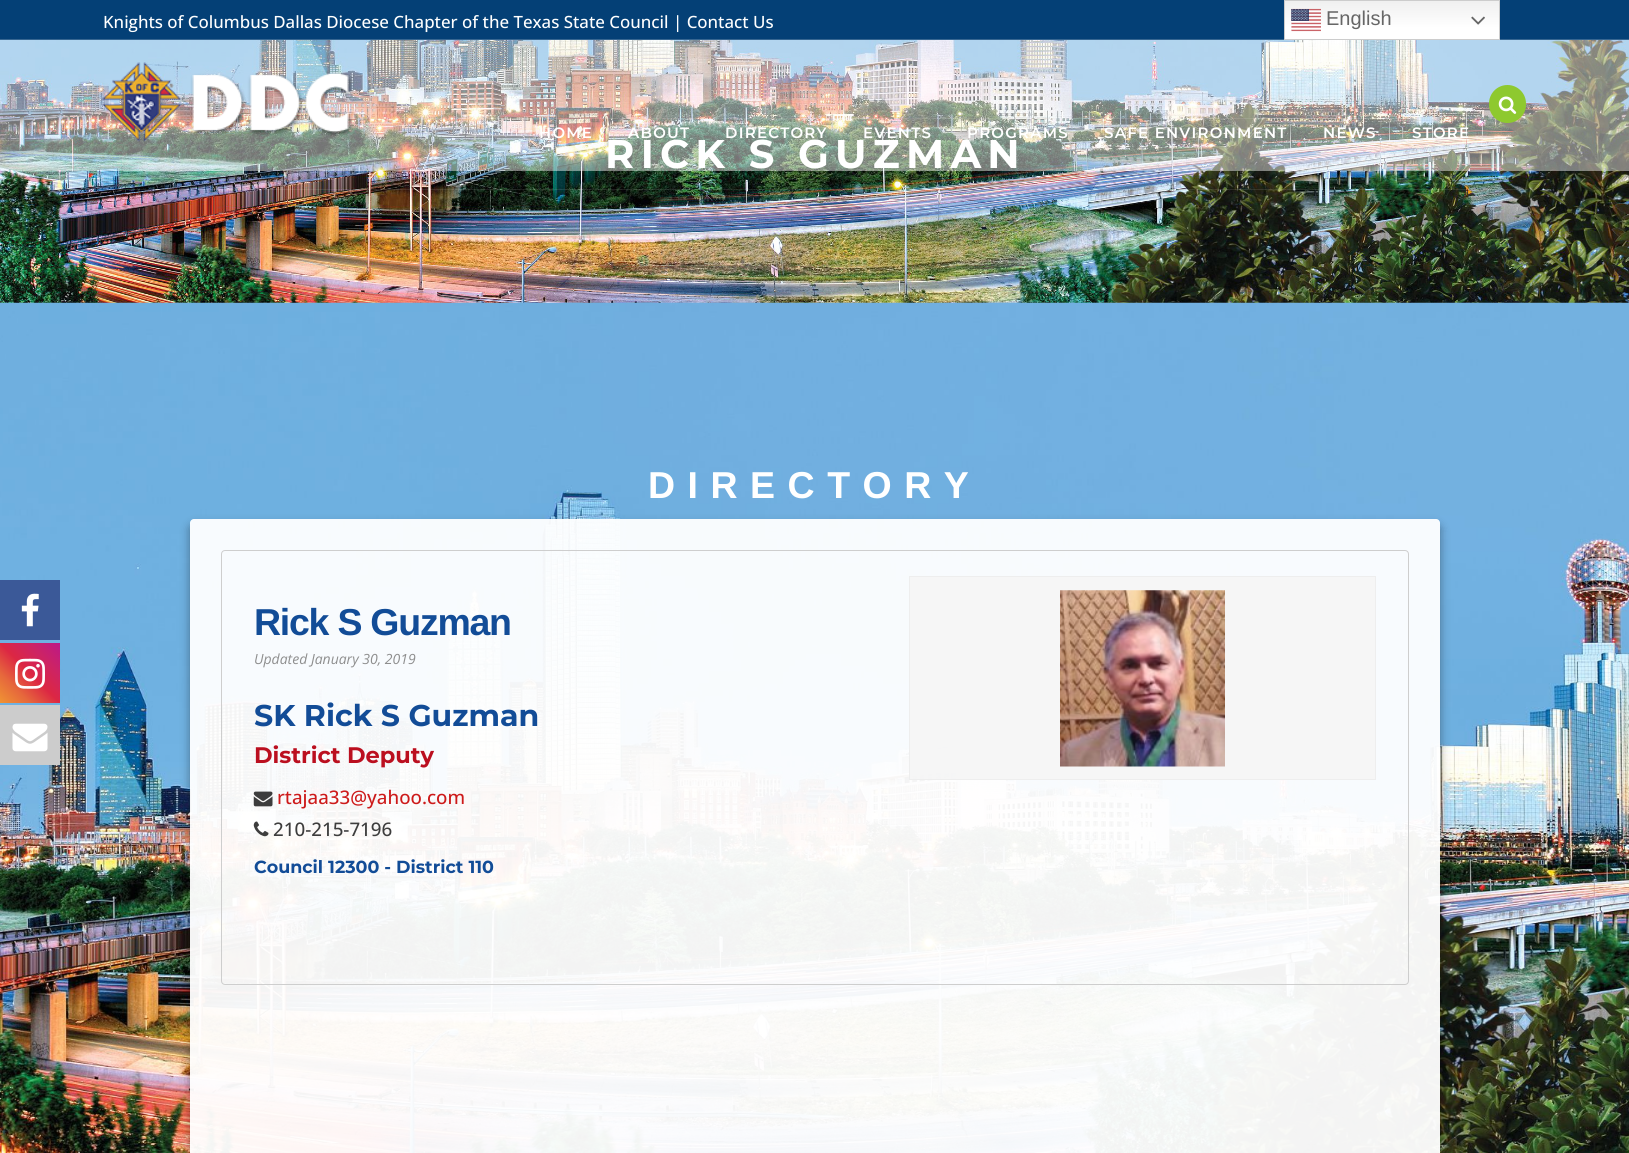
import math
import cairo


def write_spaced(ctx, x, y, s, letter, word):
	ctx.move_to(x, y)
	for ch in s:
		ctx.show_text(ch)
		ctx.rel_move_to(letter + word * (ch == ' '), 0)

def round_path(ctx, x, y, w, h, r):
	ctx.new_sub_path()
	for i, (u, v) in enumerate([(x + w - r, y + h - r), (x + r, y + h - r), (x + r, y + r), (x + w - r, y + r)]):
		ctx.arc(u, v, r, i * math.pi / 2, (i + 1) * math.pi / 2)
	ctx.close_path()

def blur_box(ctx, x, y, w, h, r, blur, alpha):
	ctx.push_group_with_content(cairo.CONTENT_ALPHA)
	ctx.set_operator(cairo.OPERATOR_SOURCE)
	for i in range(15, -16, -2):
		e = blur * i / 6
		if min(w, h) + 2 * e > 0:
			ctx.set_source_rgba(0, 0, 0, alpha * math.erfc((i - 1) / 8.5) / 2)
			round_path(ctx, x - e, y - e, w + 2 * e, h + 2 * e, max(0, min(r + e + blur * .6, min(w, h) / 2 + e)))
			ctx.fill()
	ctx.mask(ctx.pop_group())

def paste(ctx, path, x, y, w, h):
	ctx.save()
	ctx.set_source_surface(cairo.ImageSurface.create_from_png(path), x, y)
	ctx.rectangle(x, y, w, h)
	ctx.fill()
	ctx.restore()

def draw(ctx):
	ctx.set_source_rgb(1, 1, 1)
	ctx.paint()
	ctx.set_source_rgb(0.016, 0.251, 0.463)
	ctx.rectangle(0, 0, 1629, 39)
	ctx.fill()
	gradient = cairo.LinearGradient(1392, 0, 1392, 40)
	gradient.add_color_stop_rgba(0, 0.937, 0.937, 0.937, 1)
	gradient.add_color_stop_rgba(0.7, 1, 1, 1, 1)
	ctx.set_source(gradient)
	ctx.rectangle(1285, 1, 214, 38)
	ctx.fill()
	ctx.set_source_rgb(0.212, 0.4, 0.569)
	ctx.rectangle(0, 39, 1629, 1)
	ctx.fill()
	ctx.rectangle(1284.5, 0.5, 215, 39)
	ctx.set_source_rgb(0.8, 0.8, 0.8)
	ctx.set_line_width(1)
	ctx.stroke()
	paste(ctx, 'media/1.png', 1291, 8, 30, 24)
	ctx.select_font_face('Liberation Sans')
	ctx.set_font_size(20)
	ctx.set_source_rgb(0.4, 0.4, 0.4)
	ctx.move_to(1326, 25)
	ctx.show_text('English')
	paste(ctx, 'media/2.png', 1471, 16, 14, 9)
	paste(ctx, 'media/9.png', 0, 302, 1629, 851)
	ctx.set_source_rgb(0.231, 0.349, 0.596)
	ctx.rectangle(0, 580, 60, 60)
	ctx.fill()
	paste(ctx, 'media/3.png', 21, 593, 18, 34)
	gradient = cairo.LinearGradient(0, 703, 60, 643)
	gradient.add_color_stop_rgba(0, 0.941, 0.58, 0.2, 1)
	gradient.add_color_stop_rgba(0.25, 0.902, 0.408, 0.235, 1)
	gradient.add_color_stop_rgba(0.5, 0.863, 0.153, 0.263, 1)
	gradient.add_color_stop_rgba(0.75, 0.8, 0.137, 0.4, 1)
	gradient.add_color_stop_rgba(1, 0.737, 0.094, 0.533, 1)
	ctx.set_source(gradient)
	ctx.rectangle(0, 643, 60, 60)
	ctx.fill()
	paste(ctx, 'media/4.png', 15, 658, 30, 31)
	ctx.set_source_rgb(0.8, 0.8, 0.8)
	ctx.rectangle(0, 705, 60, 60)
	ctx.fill()
	paste(ctx, 'media/5.png', 12, 723, 36, 29)
	paste(ctx, 'media/8.png', 0, 40, 1629, 263)
	ctx.set_source_rgba(1, 1, 1, 0.1)
	ctx.rectangle(103, 118, 1425, 1)
	ctx.fill()
	ctx.select_font_face('Montserrat', cairo.FONT_SLANT_NORMAL, cairo.FONT_WEIGHT_BOLD)
	ctx.set_font_size(40)
	ctx.set_source_rgb(1, 1, 1)
	write_spaced(ctx, 605, 168, 'RICK S GUZMAN', 6.25, 0)
	ctx.set_source_rgba(1, 1, 1, 0.45)
	ctx.rectangle(0, 40, 1629, 131)
	ctx.fill()
	ctx.select_font_face('Open Sans Medium')
	ctx.set_font_size(16.9)
	ctx.set_source_rgb(1, 1, 1)
	ctx.move_to(103, 28)
	ctx.show_text('Knights of Columbus Dallas Diocese Chapter of the Texas State Council | Contact Us')
	paste(ctx, 'media/6.png', 101, 62, 252, 80)
	ctx.set_source_rgb(0.557, 0.788, 0.184)
	round_path(ctx, 1489, 85, 37, 38, 18.5)
	ctx.fill()
	paste(ctx, 'media/7.png', 1498, 96, 19, 18)
	ctx.select_font_face('Montserrat Thin')
	ctx.set_font_size(15)
	ctx.set_source_rgb(1, 1, 1)
	for x, y, s in [
		(539, 138, 'HOME'),
		(628, 138, 'ABOUT'),
		(725, 138, 'DIRECTORY'),
		(863, 138, 'EVENTS'),
		(967, 138, 'PROGRAMS'),
		(1104, 138, 'SAFE ENVIRONMENT'),
		(1323, 138, 'NEWS'),
		(1412, 138, 'STORE'),
	]:
		write_spaced(ctx, x, y, s, 1.25, 0)
	ctx.set_source_rgba(1, 1, 1, 0.1)
	ctx.rectangle(103, 189, 1425, 1)
	ctx.fill()
	ctx.select_font_face('Liberation Sans', cairo.FONT_SLANT_NORMAL, cairo.FONT_WEIGHT_BOLD)
	ctx.set_font_size(37.5)
	ctx.set_source_rgb(1, 1, 1)
	write_spaced(ctx, 648, 498, 'DIRECTORY', 12.5, 0)
	ctx.save()
	ctx.set_fill_rule(cairo.FILL_RULE_EVEN_ODD)
	ctx.new_path()
	ctx.move_to(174, 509)
	ctx.line_to(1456, 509)
	ctx.line_to(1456, 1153)
	ctx.line_to(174, 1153)
	ctx.close_path()
	ctx.move_to(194, 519)
	ctx.line_to(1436, 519)
	ctx.curve_to(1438, 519, 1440, 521, 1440, 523)
	ctx.line_to(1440, 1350)
	ctx.curve_to(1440, 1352, 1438, 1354, 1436, 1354)
	ctx.line_to(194, 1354)
	ctx.curve_to(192, 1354, 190, 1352, 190, 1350)
	ctx.line_to(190, 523)
	ctx.curve_to(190, 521, 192, 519, 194, 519)
	ctx.close_path()
	ctx.clip()
	ctx.set_source_rgb(0, 0, 0)
	blur_box(ctx, 190, 525, 1250, 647, 4, 5, 0.38)
	ctx.restore()
	ctx.set_source_rgba(1, 1, 1, 0.95)
	round_path(ctx, 190, 519, 1250, 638, 4)
	ctx.fill()
	round_path(ctx, 221.5, 550.5, 1187, 434, 3.5)
	ctx.set_source_rgba(0.8, 0.8, 0.8, 0.95)
	ctx.stroke()
	ctx.set_source_rgb(0.071, 0.298, 0.592)
	write_spaced(ctx, 254, 635, 'Rick S Guzman', -1.25, 0)
	ctx.select_font_face('Open Sans', cairo.FONT_SLANT_ITALIC)
	ctx.set_font_size(14)
	ctx.set_source_rgb(0.557, 0.557, 0.557)
	ctx.move_to(254, 664)
	ctx.show_text('Updated January 30, 2019')
	ctx.select_font_face('Montserrat', cairo.FONT_SLANT_NORMAL, cairo.FONT_WEIGHT_BOLD)
	ctx.set_font_size(30)
	ctx.set_source_rgb(0.071, 0.298, 0.592)
	ctx.move_to(254, 726)
	ctx.show_text('SK Rick S Guzman')
	ctx.set_font_size(22.5)
	ctx.set_source_rgb(0.733, 0.059, 0.122)
	ctx.move_to(254, 763)
	ctx.show_text('District Deputy')
	paste(ctx, 'media/10.png', 253, 791, 20, 16)
	ctx.select_font_face('Open Sans Medium')
	ctx.set_font_size(18.75)
	ctx.set_source_rgb(0.804, 0.102, 0.102)
	ctx.move_to(277, 804)
	ctx.show_text('rtajaa33@yahoo.com')
	paste(ctx, 'media/11.png', 253, 821, 16, 16)
	ctx.set_source_rgb(0.239, 0.239, 0.239)
	ctx.move_to(273, 836)
	ctx.show_text('210-215-7196')
	ctx.select_font_face('Montserrat', cairo.FONT_SLANT_NORMAL, cairo.FONT_WEIGHT_BOLD)
	ctx.set_font_size(17.5)
	ctx.set_source_rgb(0.071, 0.298, 0.592)
	ctx.move_to(254, 873)
	ctx.show_text('Council 12300 - District 110')
	ctx.set_source_rgba(0.965, 0.965, 0.965, 0.95)
	ctx.rectangle(909.5, 576.5, 466, 203)
	ctx.fill_preserve()
	ctx.set_source_rgb(0.933, 0.933, 0.933)
	ctx.stroke()
	paste(ctx, 'media/12.png', 1060, 590, 165, 177)


surface = cairo.ImageSurface(cairo.FORMAT_RGB24, 1629, 1153)
ctx = cairo.Context(surface)
options = cairo.FontOptions()
options.set_hint_metrics(cairo.HINT_METRICS_OFF)
options.set_hint_style(cairo.HINT_STYLE_NONE)
ctx.set_font_options(options)
ctx.set_miter_limit(4)
draw(ctx)
surface.write_to_png('image.png')
